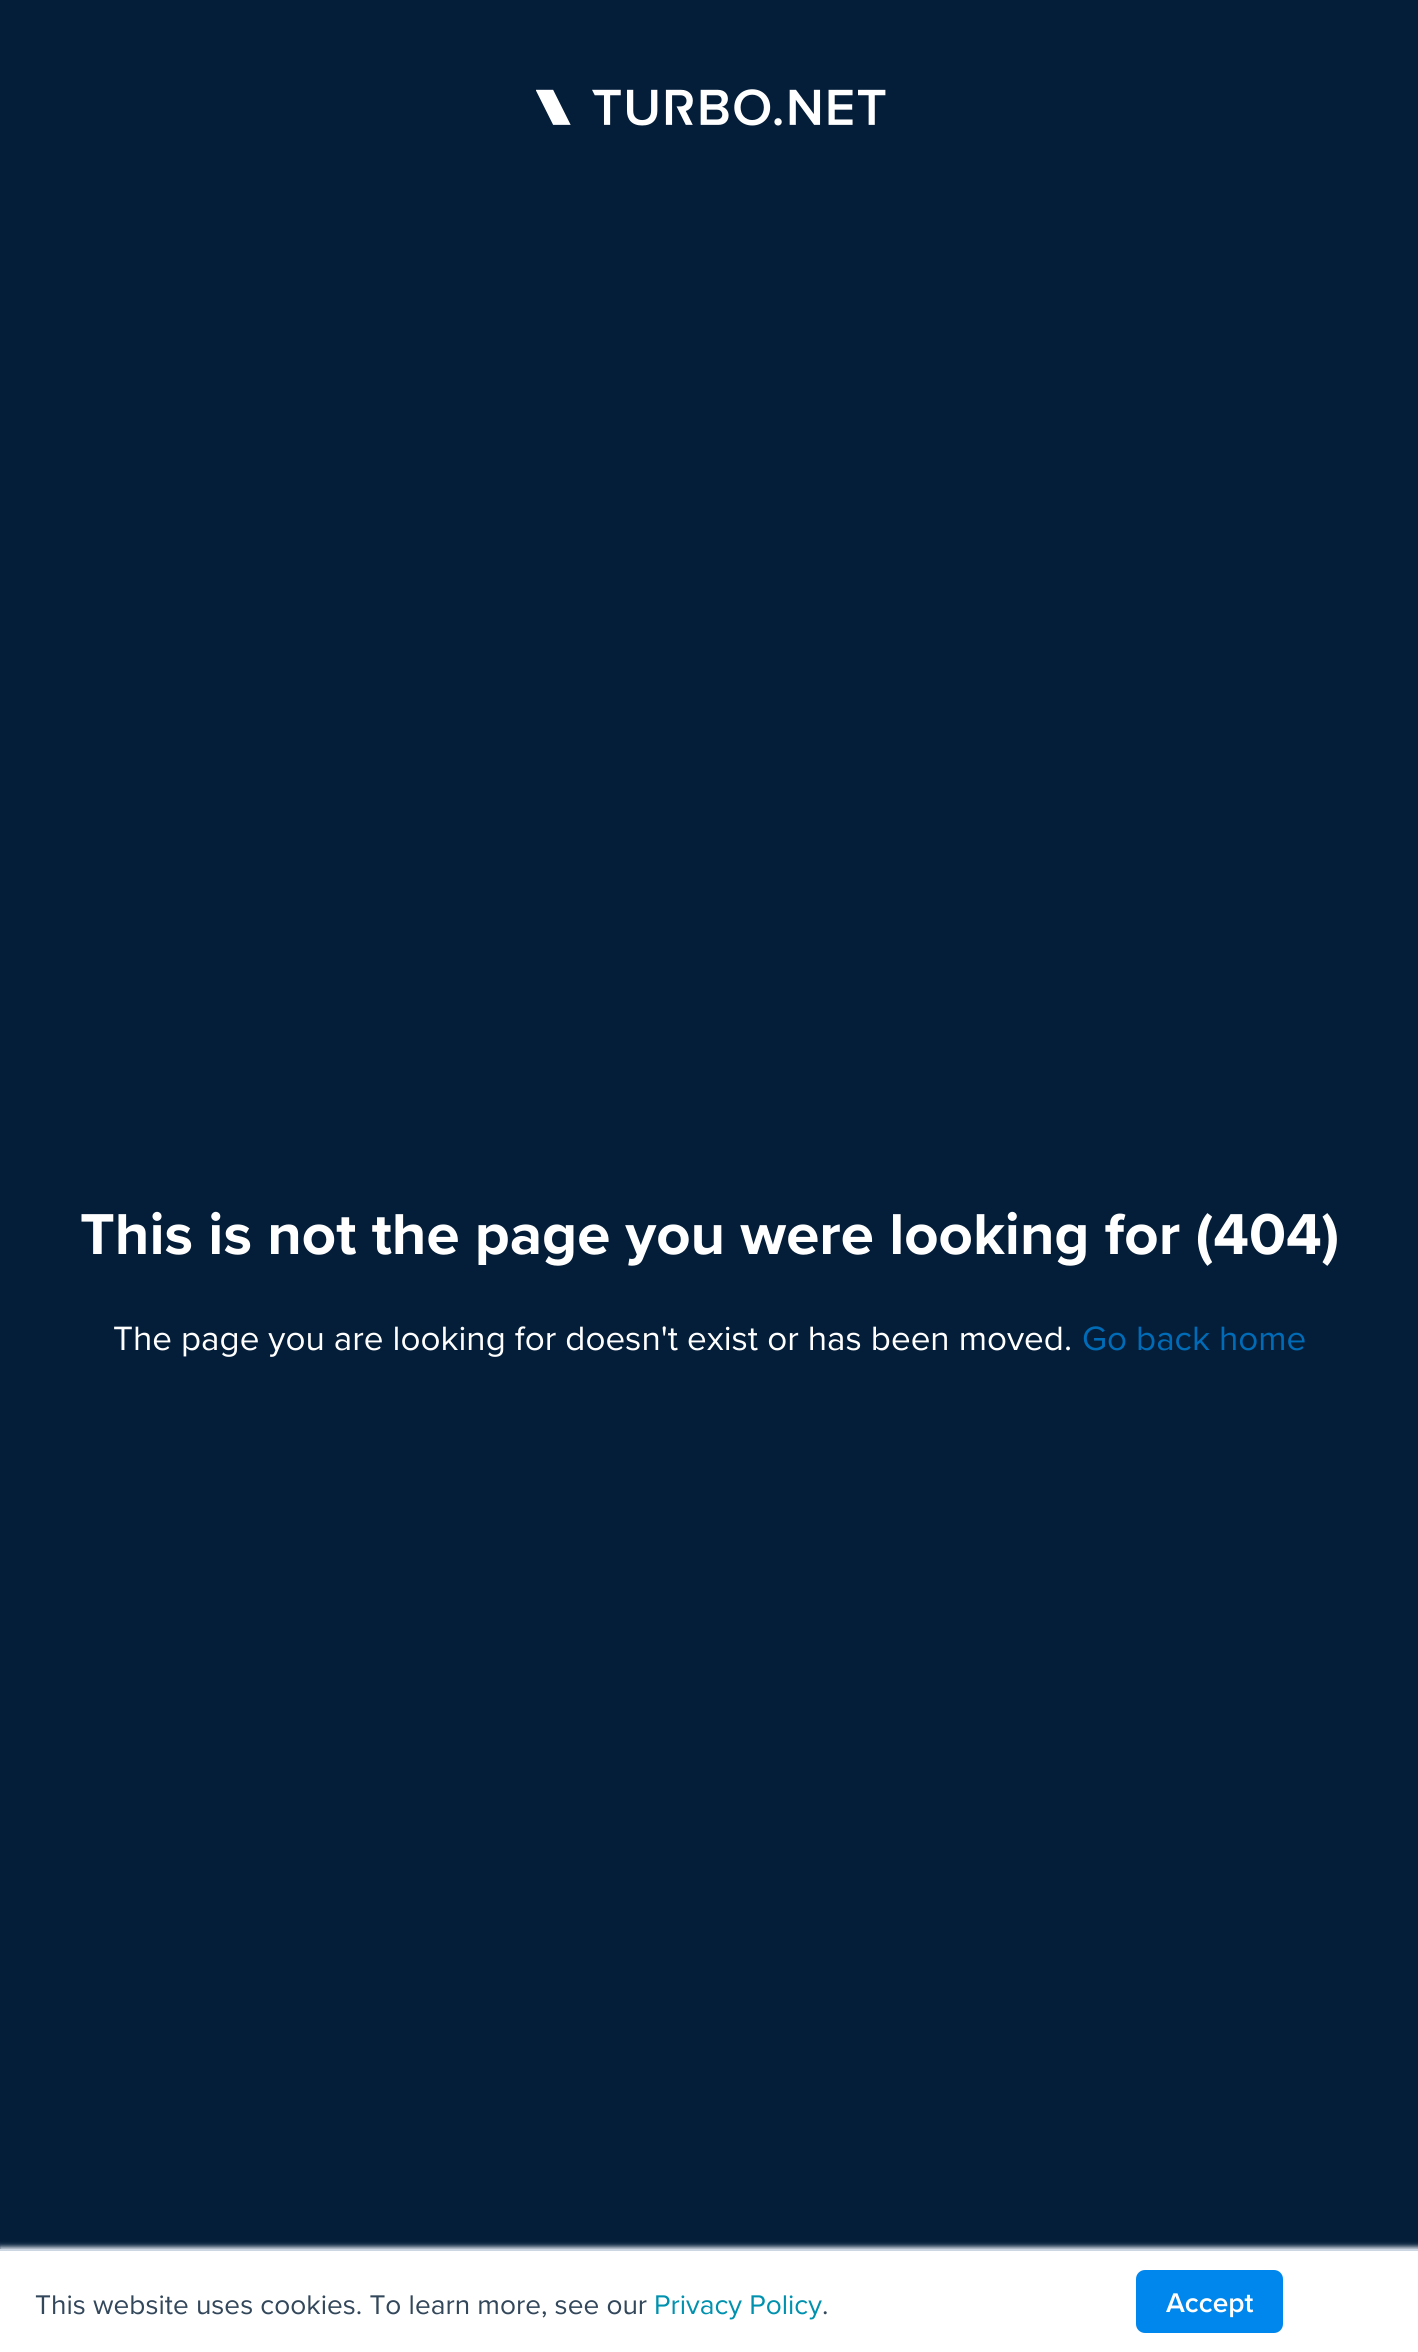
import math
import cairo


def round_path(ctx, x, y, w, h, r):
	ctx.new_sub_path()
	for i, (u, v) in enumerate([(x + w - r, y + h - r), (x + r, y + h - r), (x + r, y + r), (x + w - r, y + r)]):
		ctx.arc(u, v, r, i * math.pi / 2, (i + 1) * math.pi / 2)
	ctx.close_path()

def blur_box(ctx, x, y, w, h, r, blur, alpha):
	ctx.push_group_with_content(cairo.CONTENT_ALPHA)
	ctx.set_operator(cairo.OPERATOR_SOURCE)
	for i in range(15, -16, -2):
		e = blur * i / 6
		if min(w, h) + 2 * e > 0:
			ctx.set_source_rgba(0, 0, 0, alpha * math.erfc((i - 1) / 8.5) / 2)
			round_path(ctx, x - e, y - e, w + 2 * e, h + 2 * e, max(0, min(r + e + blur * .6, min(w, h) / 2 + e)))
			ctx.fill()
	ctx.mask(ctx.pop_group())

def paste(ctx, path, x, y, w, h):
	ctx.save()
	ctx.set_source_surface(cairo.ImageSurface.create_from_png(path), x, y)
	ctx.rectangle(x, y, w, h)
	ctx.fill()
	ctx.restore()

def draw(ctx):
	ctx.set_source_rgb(0.016, 0.118, 0.224)
	ctx.paint()
	paste(ctx, 'media/1.png', 536, 89, 350, 37)
	ctx.select_font_face('Proxima Nova', cairo.FONT_SLANT_NORMAL, cairo.FONT_WEIGHT_BOLD)
	ctx.set_font_size(59.75)
	ctx.set_source_rgb(1, 1, 1)
	ctx.move_to(80, 1254)
	ctx.show_text('This is not the page you were looking for (404)')
	ctx.select_font_face('Proxima Nova')
	ctx.set_font_size(35)
	ctx.move_to(113, 1350)
	ctx.show_text('The page you are looking for doesn\'t exist or has been moved.')
	ctx.set_source_rgb(0, 0.42, 0.718)
	ctx.move_to(1082, 1350)
	ctx.show_text('Go back home')
	ctx.set_source_rgb(0.918, 0.941, 0.965)
	blur_box(ctx, 0, 2247, 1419, 103, 0, 2.5, 1)
	ctx.set_source_rgb(1, 1, 1)
	ctx.rectangle(0, 2251, 1418, 101)
	ctx.fill()
	ctx.set_source_rgb(0.796, 0.839, 0.886)
	ctx.rectangle(0, 2249, 1418, 2)
	ctx.fill()
	ctx.set_font_size(28)
	ctx.set_source_rgb(0.2, 0.278, 0.357)
	ctx.move_to(35, 2314)
	ctx.show_text('This website uses cookies. To learn more, see our')
	ctx.set_source_rgb(0, 0.569, 0.682)
	ctx.move_to(654, 2314)
	ctx.show_text('Privacy Policy')
	ctx.set_source_rgb(0.2, 0.278, 0.357)
	ctx.move_to(822, 2314)
	ctx.show_text('.')
	ctx.set_source_rgb(0, 0.529, 0.933)
	round_path(ctx, 1137, 2271, 145, 61, 8)
	ctx.fill_preserve()
	ctx.stroke()
	ctx.select_font_face('Proxima Nova SemiBold')
	ctx.set_source_rgb(1, 1, 1)
	ctx.move_to(1166, 2312)
	ctx.show_text('Accept')


surface = cairo.ImageSurface(cairo.FORMAT_RGB24, 1418, 2352)
ctx = cairo.Context(surface)
options = cairo.FontOptions()
options.set_hint_metrics(cairo.HINT_METRICS_OFF)
options.set_hint_style(cairo.HINT_STYLE_NONE)
ctx.set_font_options(options)
ctx.set_miter_limit(4)
draw(ctx)
surface.write_to_png('image.png')
